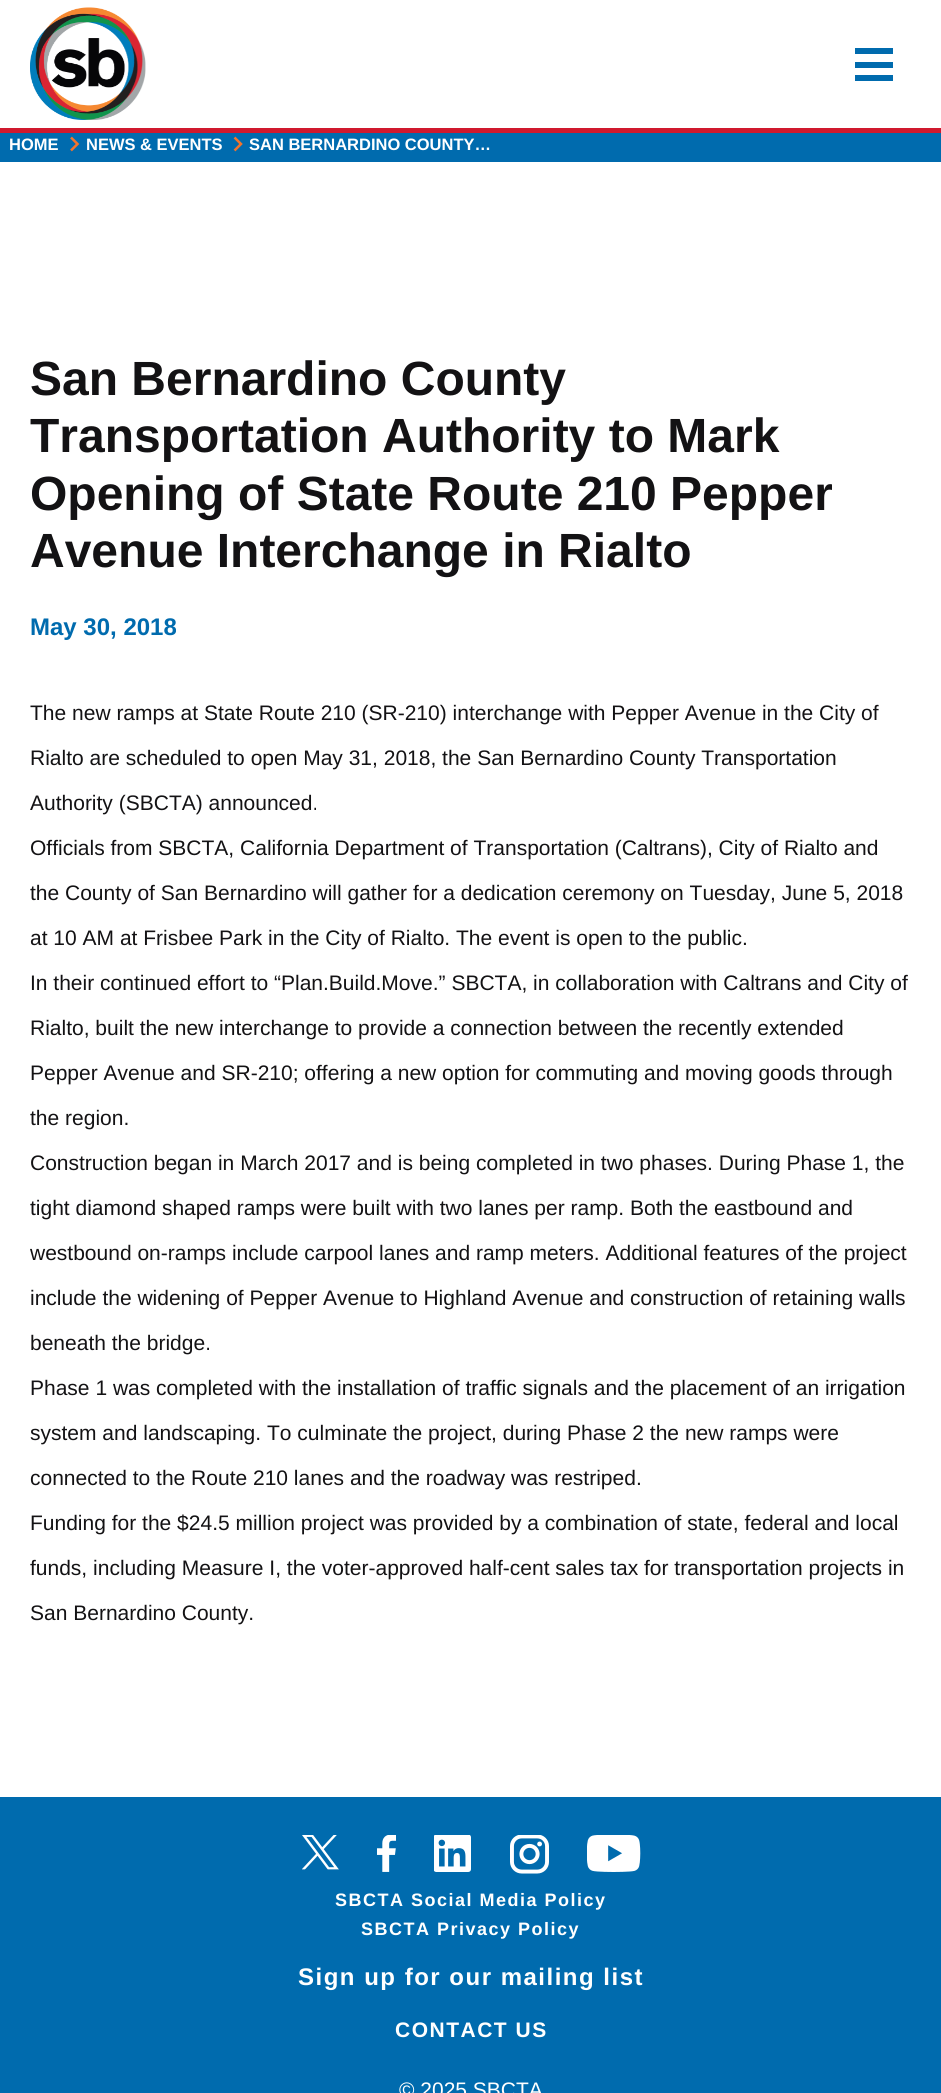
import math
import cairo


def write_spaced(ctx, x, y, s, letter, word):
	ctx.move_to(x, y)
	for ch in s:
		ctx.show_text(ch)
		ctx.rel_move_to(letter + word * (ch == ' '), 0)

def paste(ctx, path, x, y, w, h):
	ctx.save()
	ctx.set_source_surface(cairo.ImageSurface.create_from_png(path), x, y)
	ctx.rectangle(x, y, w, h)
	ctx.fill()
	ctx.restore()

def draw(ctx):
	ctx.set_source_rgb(1, 1, 1)
	ctx.paint()
	ctx.set_source_rgb(0.816, 0.098, 0.18)
	ctx.rectangle(0, 128, 941, 5)
	ctx.fill()
	paste(ctx, 'media/1.png', 30, 7, 116, 113)
	ctx.set_source_rgb(0, 0.42, 0.682)
	ctx.rectangle(855, 48, 38, 6)
	ctx.rectangle(855, 62, 38, 6)
	ctx.rectangle(855, 75, 38, 6)
	ctx.rectangle(0, 133, 941, 29)
	ctx.fill()
	ctx.select_font_face('Liberation Sans', cairo.FONT_SLANT_NORMAL, cairo.FONT_WEIGHT_BOLD)
	ctx.set_font_size(16.5)
	ctx.set_source_rgb(1, 1, 1)
	ctx.move_to(9, 150)
	ctx.show_text('HOME')
	ctx.new_path()
	ctx.move_to(71, 150.5)
	ctx.line_to(77.5, 144)
	ctx.line_to(71, 137.5)
	ctx.set_source_rgb(0.957, 0.451, 0.169)
	ctx.set_line_width(2.5)
	ctx.stroke()
	ctx.set_source_rgb(1, 1, 1)
	ctx.move_to(86, 150)
	ctx.show_text('NEWS & EVENTS')
	ctx.new_path()
	ctx.move_to(234.5, 150.5)
	ctx.line_to(241, 144)
	ctx.line_to(234.5, 137.5)
	ctx.set_source_rgb(0.957, 0.451, 0.169)
	ctx.stroke()
	ctx.set_source_rgb(1, 1, 1)
	ctx.move_to(249, 150)
	ctx.show_text('SAN BERNARDINO COUNTY…')
	ctx.set_font_size(48)
	ctx.set_source_rgb(0.075, 0.071, 0.082)
	for x, y, s in [
		(30, 395, 'San Bernardino County'),
		(30, 452, 'Transportation Authority to Mark'),
		(30, 510, 'Opening of State Route 210 Pepper'),
		(30, 567, 'Avenue Interchange in Rialto'),
	]:
		ctx.move_to(x, y)
		ctx.show_text(s)
	ctx.set_font_size(24)
	ctx.set_source_rgb(0, 0.42, 0.682)
	ctx.move_to(30, 635)
	ctx.show_text('May 30, 2018')
	ctx.select_font_face('Liberation Sans')
	ctx.set_font_size(21)
	ctx.set_source_rgb(0.075, 0.071, 0.082)
	for x, y, s in [
		(30, 720, 'The new ramps at State Route 210 (SR-210) interchange with Pepper Avenue in the City of'),
		(30, 765, 'Rialto are scheduled to open May 31, 2018, the San Bernardino County Transportation'),
		(30, 810, 'Authority (SBCTA) announced.'),
		(30, 855, 'Officials from SBCTA, California Department of Transportation (Caltrans), City of Rialto and'),
		(30, 900, 'the County of San Bernardino will gather for a dedication ceremony on Tuesday, June 5, 2018'),
		(30, 945, 'at 10 AM at Frisbee Park in the City of Rialto. The event is open to the public.'),
		(30, 990, 'In their continued effort to “Plan.Build.Move.” SBCTA, in collaboration with Caltrans and City of'),
		(30, 1035, 'Rialto, built the new interchange to provide a connection between the recently extended'),
		(30, 1080, 'Pepper Avenue and SR-210; offering a new option for commuting and moving goods through'),
		(30, 1125, 'the region.'),
		(30, 1170, 'Construction began in March 2017 and is being completed in two phases. During Phase 1, the'),
		(30, 1215, 'tight diamond shaped ramps were built with two lanes per ramp. Both the eastbound and'),
		(30, 1260, 'westbound on-ramps include carpool lanes and ramp meters. Additional features of the project'),
		(30, 1305, 'include the widening of Pepper Avenue to Highland Avenue and construction of retaining walls'),
		(30, 1350, 'beneath the bridge.'),
		(30, 1395, 'Phase 1 was completed with the installation of traffic signals and the placement of an irrigation'),
		(30, 1440, 'system and landscaping. To culminate the project, during Phase 2 the new ramps were'),
		(30, 1485, 'connected to the Route 210 lanes and the roadway was restriped.'),
		(30, 1530, 'Funding for the $24.5 million project was provided by a combination of state, federal and local'),
		(30, 1575, 'funds, including Measure I, the voter-approved half-cent sales tax for transportation projects in'),
		(30, 1620, 'San Bernardino County.'),
	]:
		ctx.move_to(x, y)
		ctx.show_text(s)
	ctx.set_source_rgb(0, 0.42, 0.682)
	ctx.rectangle(0, 1797, 941, 296)
	ctx.fill()
	paste(ctx, 'media/2.png', 302, 1835, 37, 35)
	paste(ctx, 'media/3.png', 377, 1835, 19, 37)
	paste(ctx, 'media/4.png', 434, 1835, 37, 37)
	paste(ctx, 'media/5.png', 510, 1835, 39, 39)
	paste(ctx, 'media/6.png', 587, 1835, 54, 37)
	ctx.select_font_face('Liberation Sans', cairo.FONT_SLANT_NORMAL, cairo.FONT_WEIGHT_BOLD)
	ctx.set_font_size(18)
	ctx.set_source_rgb(1, 1, 1)
	write_spaced(ctx, 335, 1906, 'SBCTA Social Media Policy', 1.5, 0)
	write_spaced(ctx, 361, 1935, 'SBCTA Privacy Policy', 1.5, 0)
	ctx.set_font_size(24)
	write_spaced(ctx, 298, 1985, 'Sign up for our mailing list', 1.5, 0)
	ctx.set_font_size(21)
	write_spaced(ctx, 395, 2037, 'CONTACT US', 1.5, 0)
	ctx.select_font_face('Liberation Sans')
	ctx.move_to(399, 2097)
	ctx.show_text('© 2025 SBCTA')


surface = cairo.ImageSurface(cairo.FORMAT_RGB24, 941, 2093)
ctx = cairo.Context(surface)
options = cairo.FontOptions()
options.set_hint_metrics(cairo.HINT_METRICS_OFF)
options.set_hint_style(cairo.HINT_STYLE_NONE)
ctx.set_font_options(options)
ctx.set_miter_limit(4)
draw(ctx)
surface.write_to_png('image.png')
